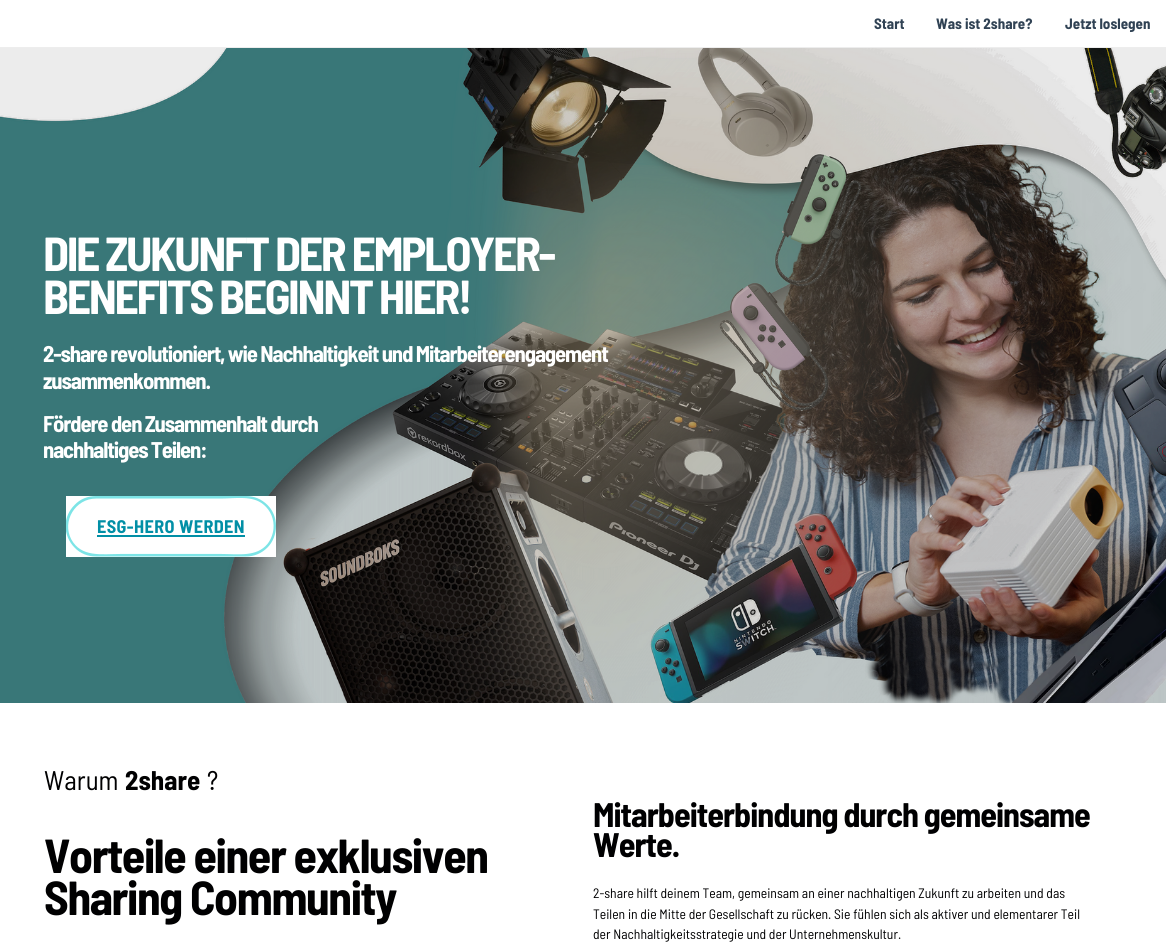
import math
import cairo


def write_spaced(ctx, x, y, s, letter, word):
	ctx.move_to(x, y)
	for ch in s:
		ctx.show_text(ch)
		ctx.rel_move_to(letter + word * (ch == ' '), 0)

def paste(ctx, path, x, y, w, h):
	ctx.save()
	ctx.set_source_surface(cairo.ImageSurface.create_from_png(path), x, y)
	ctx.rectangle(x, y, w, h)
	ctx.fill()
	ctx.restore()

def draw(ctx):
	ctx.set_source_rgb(1, 1, 1)
	ctx.paint()
	ctx.set_source_rgb(0.929, 0.929, 0.929)
	ctx.rectangle(0, 47, 1166, 1)
	ctx.fill()
	ctx.select_font_face('Barlow Semi Condensed', cairo.FONT_SLANT_NORMAL, cairo.FONT_WEIGHT_BOLD)
	ctx.set_font_size(15)
	ctx.set_source_rgb(0.188, 0.259, 0.329)
	for x, y, s in [
		(874, 29, 'Start'),
		(936, 29, 'Was ist 2share?'),
		(1065, 29, 'Jetzt loslegen'),
	]:
		ctx.move_to(x, y)
		ctx.show_text(s)
	paste(ctx, 'media/1.png', 0, 48, 1166, 655)
	ctx.set_font_size(47.75)
	ctx.set_source_rgb(1, 1, 1)
	write_spaced(ctx, 43, 271, 'DIE ZUKUNFT DER EMPLOYER-', -2.4, 0)
	write_spaced(ctx, 43, 314, 'BENEFITS BEGINNT HIER!', -2.4, 0)
	ctx.set_font_size(22.75)
	for x, y, s in [
		(43, 362, '2-share revolutioniert, wie Nachhaltigkeit und Mitarbeiterengagement'),
		(43, 389, 'zusammenkommen.'),
		(43, 432, 'Fördere den Zusammenhalt durch'),
		(43, 458, 'nachhaltiges Teilen:'),
	]:
		write_spaced(ctx, x, y, s, -1.15, 0)
	ctx.rectangle(66, 496, 210, 61)
	ctx.fill()
	ctx.save()
	ctx.rectangle(66, 496, 211, 61)
	ctx.clip()
	ctx.new_path()
	ctx.move_to(96, 496)
	ctx.line_to(246, 496)
	ctx.curve_to(254, 496, 261.5, 499, 267.5, 505)
	ctx.curve_to(273, 510.5, 276, 518, 276, 526)
	ctx.curve_to(276, 534, 273, 542, 267.5, 547.5)
	ctx.curve_to(261.5, 553.5, 254, 556.5, 246, 556.5)
	ctx.line_to(96, 556.5)
	ctx.curve_to(88, 556.5, 80, 553.5, 74.5, 547.5)
	ctx.curve_to(69, 542, 65.5, 534, 65.5, 526)
	ctx.curve_to(65.5, 518, 69, 510.5, 74.5, 505)
	ctx.curve_to(80, 499, 88, 496, 96, 496)
	ctx.close_path()
	ctx.clip()
	ctx.new_path()
	ctx.move_to(96, 496)
	ctx.line_to(221, 496)
	ctx.curve_to(235.5, 496, 253, 492.5, 265, 502.5)
	ctx.curve_to(273, 509, 277, 519, 276, 529)
	ctx.curve_to(275.5, 535, 273, 541, 269.5, 545.5)
	ctx.curve_to(257.5, 560, 238, 556.5, 221, 556.5)
	ctx.line_to(121, 556.5)
	ctx.curve_to(101.5, 556.5, 80, 560.5, 69, 540.5)
	ctx.curve_to(58.5, 520.5, 73.5, 496, 96, 496)
	ctx.close_path()
	ctx.set_source_rgb(0.49, 0.894, 0.902)
	ctx.set_line_width(5.1)
	ctx.stroke()
	ctx.restore()
	ctx.set_font_size(18.25)
	ctx.set_source_rgb(0.004, 0.561, 0.651)
	write_spaced(ctx, 97, 533, 'ESG-HERO WERDEN', 0.4, 0)
	ctx.rectangle(97, 535, 148, 2)
	ctx.fill()
	ctx.select_font_face('Barlow Semi Condensed')
	ctx.set_font_size(27)
	ctx.set_source_rgb(0, 0, 0.004)
	ctx.move_to(44, 790)
	ctx.show_text('Warum')
	ctx.select_font_face('Barlow Semi Condensed', cairo.FONT_SLANT_NORMAL, cairo.FONT_WEIGHT_BOLD)
	ctx.move_to(125, 790)
	ctx.show_text('2share')
	ctx.select_font_face('Barlow Semi Condensed')
	ctx.move_to(207, 790)
	ctx.show_text('?')
	ctx.select_font_face('Barlow Semi Condensed', cairo.FONT_SLANT_NORMAL, cairo.FONT_WEIGHT_BOLD)
	ctx.set_font_size(47.75)
	write_spaced(ctx, 44, 873, 'Vorteile einer exklusiven', -1.4, 0)
	write_spaced(ctx, 44, 915, 'Sharing Community', -1.4, 0)
	ctx.set_font_size(34.1)
	write_spaced(ctx, 593, 827, 'Mitarbeiterbindung durch gemeinsame', -1, 0)
	write_spaced(ctx, 593, 857, 'Werte.', -1, 0)
	ctx.select_font_face('Barlow Semi Condensed')
	ctx.set_font_size(13.65)
	for x, y, s in [
		(593, 898, '2-share hilft deinem Team, gemeinsam an einer nachhaltigen Zukunft zu arbeiten und das'),
		(593, 919, 'Teilen in die Mitte der Gesellschaft zu rücken. Sie fühlen sich als aktiver und elementarer Teil'),
		(593, 939, 'der Nachhaltigkeitsstrategie und der Unternehmenskultur.'),
	]:
		ctx.move_to(x, y)
		ctx.show_text(s)


surface = cairo.ImageSurface(cairo.FORMAT_RGB24, 1166, 952)
ctx = cairo.Context(surface)
options = cairo.FontOptions()
options.set_hint_metrics(cairo.HINT_METRICS_OFF)
options.set_hint_style(cairo.HINT_STYLE_NONE)
ctx.set_font_options(options)
ctx.set_miter_limit(4)
draw(ctx)
surface.write_to_png('image.png')
